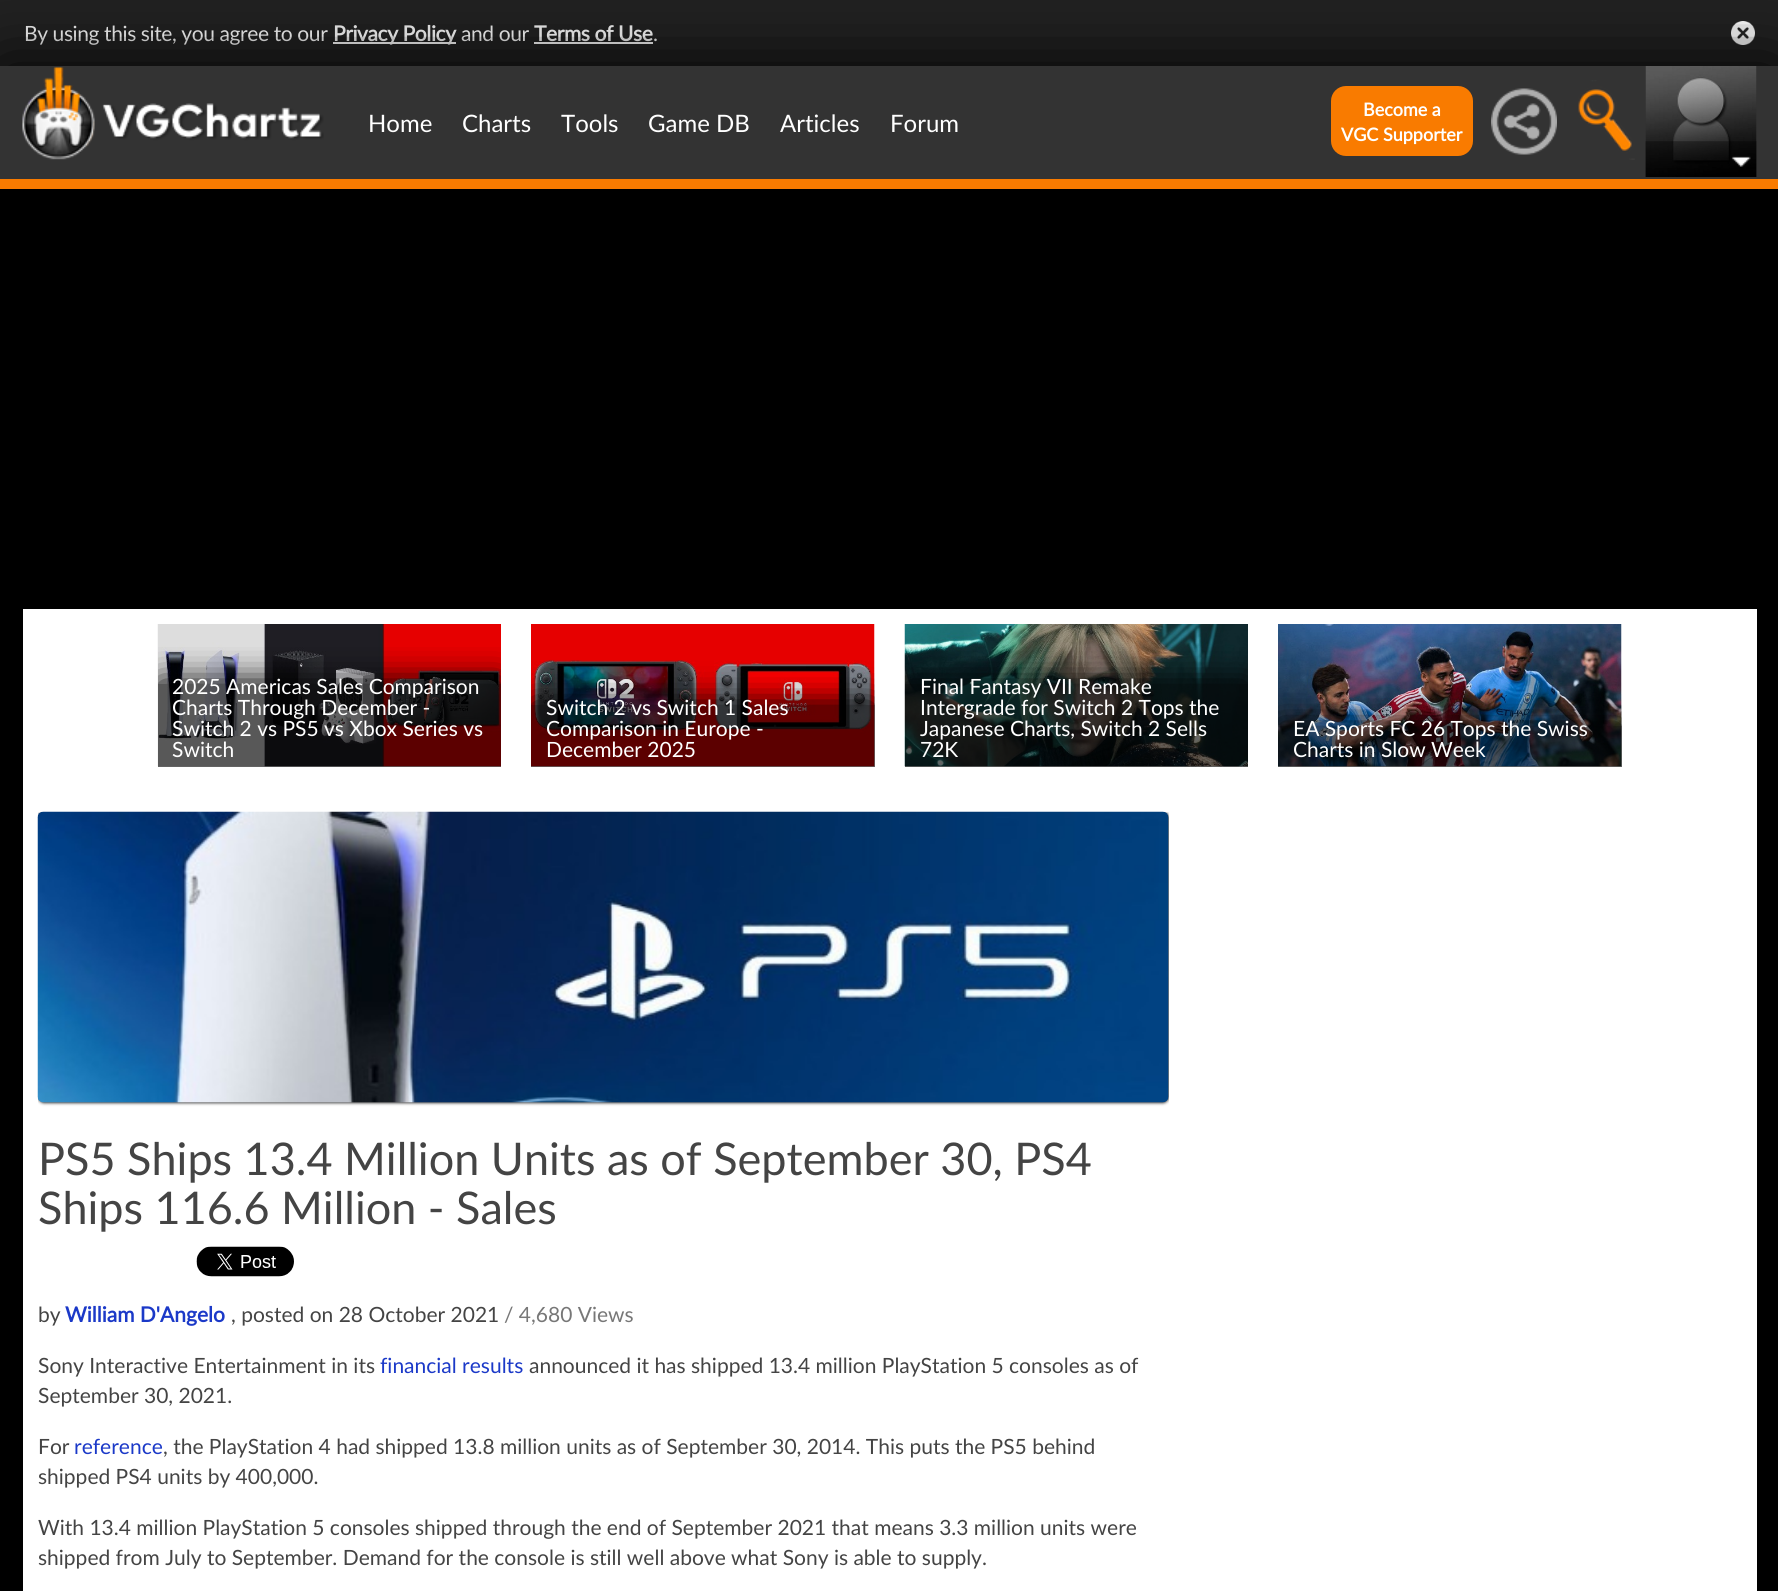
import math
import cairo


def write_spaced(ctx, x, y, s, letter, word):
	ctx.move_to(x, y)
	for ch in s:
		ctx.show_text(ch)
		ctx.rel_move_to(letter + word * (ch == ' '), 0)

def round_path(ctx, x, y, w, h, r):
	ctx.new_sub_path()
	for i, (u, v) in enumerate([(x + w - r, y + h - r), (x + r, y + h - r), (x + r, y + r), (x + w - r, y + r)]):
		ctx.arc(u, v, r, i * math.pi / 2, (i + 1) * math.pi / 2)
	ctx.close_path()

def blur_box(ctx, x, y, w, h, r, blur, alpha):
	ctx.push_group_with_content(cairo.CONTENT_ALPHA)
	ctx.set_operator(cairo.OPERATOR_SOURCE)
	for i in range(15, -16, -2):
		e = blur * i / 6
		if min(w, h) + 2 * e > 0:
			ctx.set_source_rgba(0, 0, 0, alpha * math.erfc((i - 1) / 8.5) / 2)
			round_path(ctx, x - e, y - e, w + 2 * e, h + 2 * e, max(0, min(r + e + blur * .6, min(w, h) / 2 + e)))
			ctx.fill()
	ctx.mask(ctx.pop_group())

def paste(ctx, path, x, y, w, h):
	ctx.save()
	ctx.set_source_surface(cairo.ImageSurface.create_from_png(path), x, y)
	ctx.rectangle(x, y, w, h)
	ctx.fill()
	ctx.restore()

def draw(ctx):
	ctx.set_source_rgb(0, 0, 0)
	ctx.paint()
	ctx.set_source_rgb(0.133, 0.133, 0.133)
	ctx.rectangle(0, 0, 1778, 66)
	ctx.fill()
	ctx.select_font_face('Lato')
	ctx.set_font_size(21)
	ctx.set_source_rgb(1, 1, 1)
	write_spaced(ctx, 24, 41, 'By using this site, you agree to our', -0.4, 0)
	ctx.rectangle(333, 42, 123, 2)
	ctx.fill()
	ctx.select_font_face('Lato', cairo.FONT_SLANT_NORMAL, cairo.FONT_WEIGHT_BOLD)
	write_spaced(ctx, 333, 41, 'Privacy Policy', -0.4, 0)
	ctx.select_font_face('Lato')
	write_spaced(ctx, 461, 41, 'and our', -0.4, 0)
	ctx.select_font_face('Lato', cairo.FONT_SLANT_NORMAL, cairo.FONT_WEIGHT_BOLD)
	write_spaced(ctx, 534, 41, 'Terms of Use', -0.4, 0)
	ctx.select_font_face('Lato')
	write_spaced(ctx, 653, 41, '.', -0.4, 0)
	ctx.rectangle(534, 42, 119, 2)
	ctx.fill()
	paste(ctx, 'media/1.png', 1731, 21, 24, 24)
	ctx.set_source_rgb(0, 0, 0)
	blur_box(ctx, 0, 68, 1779, 123, 0, 37.5, 1)
	ctx.set_source_rgb(0.2, 0.2, 0.2)
	ctx.rectangle(0, 66, 1778, 113)
	ctx.fill()
	paste(ctx, 'media/2.png', 22, 67, 302, 93)
	ctx.set_font_size(24)
	ctx.set_source_rgb(1, 1, 1)
	for x, y, s in [
		(368, 132, 'Home'),
		(462, 132, 'Charts'),
		(561, 132, 'Tools'),
		(648, 132, 'Game DB'),
		(780, 132, 'Articles'),
		(890, 132, 'Forum'),
	]:
		ctx.move_to(x, y)
		ctx.show_text(s)
	ctx.set_source_rgb(0.973, 0.482, 0)
	round_path(ctx, 1332, 87, 140, 68, 14)
	ctx.fill_preserve()
	ctx.stroke()
	ctx.select_font_face('Lato', cairo.FONT_SLANT_NORMAL, cairo.FONT_WEIGHT_BOLD)
	ctx.set_font_size(18)
	ctx.set_source_rgb(1, 1, 1)
	ctx.move_to(1363, 116)
	ctx.show_text('Become a')
	ctx.move_to(1341, 141)
	ctx.show_text('VGC Supporter')
	paste(ctx, 'media/3.png', 1491, 88, 66, 67)
	paste(ctx, 'media/4.png', 1578, 80, 57, 80)
	paste(ctx, 'media/5.png', 1645, 66, 112, 111)
	paste(ctx, 'media/6.png', 1645, 141, 112, 36)
	ctx.set_source_rgb(0.976, 0.482, 0)
	ctx.rectangle(0, 179, 1778, 10)
	ctx.fill()
	ctx.set_source_rgb(1, 1, 1)
	ctx.rectangle(23, 609, 1734, 982)
	ctx.fill()
	paste(ctx, 'media/7.png', 157, 624, 344, 143)
	ctx.save()
	ctx.rectangle(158, 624, 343, 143)
	ctx.clip()
	ctx.rectangle(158, 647, 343, 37)
	ctx.clip()
	ctx.set_source_rgb(0, 0, 0)
	blur_box(ctx, 158, 681, 343, 113, 0, 16.5, 1)
	ctx.restore()
	ctx.set_source_rgba(0, 0, 0, 0.6)
	ctx.rectangle(158, 684, 343, 83)
	ctx.fill()
	ctx.select_font_face('Lato')
	ctx.set_font_size(21)
	ctx.set_source_rgb(1, 1, 1)
	for x, y, s in [
		(172, 694, '2025 Americas Sales Comparison'),
		(172, 715, 'Charts Through December -'),
		(172, 736, 'Switch 2 vs PS5 vs Xbox Series vs'),
		(172, 757, 'Switch'),
	]:
		ctx.move_to(x, y)
		ctx.show_text(s)
	paste(ctx, 'media/8.png', 531, 624, 344, 143)
	ctx.save()
	ctx.rectangle(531, 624, 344, 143)
	ctx.clip()
	ctx.set_fill_rule(cairo.FILL_RULE_EVEN_ODD)
	ctx.new_path()
	ctx.move_to(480, 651)
	ctx.line_to(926, 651)
	ctx.line_to(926, 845)
	ctx.line_to(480, 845)
	ctx.close_path()
	ctx.move_to(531, 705)
	ctx.line_to(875, 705)
	ctx.line_to(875, 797)
	ctx.line_to(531, 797)
	ctx.close_path()
	ctx.clip()
	ctx.set_source_rgb(0, 0, 0)
	blur_box(ctx, 531, 702, 344, 92, 0, 16.5, 1)
	ctx.restore()
	ctx.set_source_rgba(0, 0, 0, 0.6)
	ctx.rectangle(531, 705, 344, 62)
	ctx.fill()
	ctx.set_source_rgb(1, 1, 1)
	for x, y, s in [
		(546, 715, 'Switch 2 vs Switch 1 Sales'),
		(546, 736, 'Comparison in Europe -'),
		(546, 757, 'December 2025'),
	]:
		ctx.move_to(x, y)
		ctx.show_text(s)
	paste(ctx, 'media/9.png', 904, 624, 344, 143)
	ctx.save()
	ctx.rectangle(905, 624, 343, 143)
	ctx.clip()
	ctx.rectangle(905, 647, 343, 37)
	ctx.clip()
	ctx.set_source_rgb(0, 0, 0)
	blur_box(ctx, 905, 681, 343, 113, 0, 16.5, 1)
	ctx.restore()
	ctx.set_source_rgba(0, 0, 0, 0.6)
	ctx.rectangle(905, 684, 343, 83)
	ctx.fill()
	ctx.set_source_rgb(1, 1, 1)
	for x, y, s in [
		(920, 694, 'Final Fantasy VII Remake'),
		(920, 715, 'Intergrade for Switch 2 Tops the'),
		(920, 736, 'Japanese Charts, Switch 2 Sells'),
		(920, 757, '72K'),
	]:
		ctx.move_to(x, y)
		ctx.show_text(s)
	paste(ctx, 'media/10.png', 1278, 624, 344, 143)
	ctx.save()
	ctx.rectangle(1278, 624, 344, 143)
	ctx.clip()
	ctx.set_fill_rule(cairo.FILL_RULE_EVEN_ODD)
	ctx.new_path()
	ctx.move_to(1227, 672)
	ctx.line_to(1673, 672)
	ctx.line_to(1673, 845)
	ctx.line_to(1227, 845)
	ctx.close_path()
	ctx.move_to(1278, 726)
	ctx.line_to(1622, 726)
	ctx.line_to(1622, 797)
	ctx.line_to(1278, 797)
	ctx.close_path()
	ctx.clip()
	ctx.set_source_rgb(0, 0, 0)
	blur_box(ctx, 1278, 723, 344, 71, 0, 16.5, 1)
	ctx.restore()
	ctx.set_source_rgba(0, 0, 0, 0.6)
	ctx.rectangle(1278, 726, 344, 41)
	ctx.fill()
	ctx.set_source_rgb(1, 1, 1)
	ctx.move_to(1293, 736)
	ctx.show_text('EA Sports FC 26 Tops the Swiss')
	ctx.move_to(1293, 757)
	ctx.show_text('Charts in Slow Week')
	ctx.save()
	ctx.rectangle(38, 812, 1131, 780)
	ctx.clip()
	ctx.set_source_rgb(0.2, 0.2, 0.2)
	blur_box(ctx, 38, 812, 1131, 291, 6, 1.5, 1)
	ctx.restore()
	paste(ctx, 'media/11.png', 37, 811, 1132, 292)
	ctx.set_font_size(45)
	ctx.set_source_rgb(0.267, 0.267, 0.267)
	ctx.move_to(38, 1175)
	ctx.show_text('PS5 Ships 13.4 Million Units as of September 30, PS4')
	ctx.move_to(38, 1224)
	ctx.show_text('Ships 116.6 Million - Sales')
	paste(ctx, 'media/12.png', 196, 1246, 98, 31)
	ctx.set_font_size(21)
	ctx.move_to(38, 1322)
	ctx.show_text('by')
	ctx.select_font_face('Lato', cairo.FONT_SLANT_NORMAL, cairo.FONT_WEIGHT_BOLD)
	ctx.set_source_rgb(0.106, 0.224, 0.784)
	ctx.move_to(65, 1322)
	ctx.show_text('William D\'Angelo')
	ctx.select_font_face('Lato')
	ctx.set_source_rgb(0.267, 0.267, 0.267)
	ctx.move_to(231, 1322)
	ctx.show_text(', posted on 28 October 2021')
	ctx.set_source_rgb(0.467, 0.467, 0.467)
	ctx.move_to(504, 1322)
	ctx.show_text('/ 4,680 Views')
	ctx.set_source_rgb(0.267, 0.267, 0.267)
	ctx.move_to(38, 1373)
	ctx.show_text('Sony Interactive Entertainment in its')
	ctx.set_source_rgb(0.106, 0.224, 0.784)
	ctx.move_to(380, 1373)
	ctx.show_text('financial results')
	ctx.set_source_rgb(0.267, 0.267, 0.267)
	for x, y, s in [
		(529, 1373, 'announced it has shipped 13.4 million PlayStation 5 consoles as of'),
		(38, 1403, 'September 30, 2021.'),
		(38, 1454, 'For'),
	]:
		ctx.move_to(x, y)
		ctx.show_text(s)
	ctx.set_source_rgb(0.106, 0.224, 0.784)
	ctx.move_to(74, 1454)
	ctx.show_text('reference')
	ctx.set_source_rgb(0.267, 0.267, 0.267)
	for x, y, s in [
		(163, 1454, ', the PlayStation 4 had shipped 13.8 million units as of September 30, 2014. This puts the PS5 behind'),
		(38, 1484, 'shipped PS4 units by 400,000.'),
		(38, 1535, 'With 13.4 million PlayStation 5 consoles shipped through the end of September 2021 that means 3.3 million units were'),
		(38, 1565, 'shipped from July to September. Demand for the console is still well above what Sony is able to supply.'),
	]:
		ctx.move_to(x, y)
		ctx.show_text(s)


surface = cairo.ImageSurface(cairo.FORMAT_RGB24, 1778, 1591)
ctx = cairo.Context(surface)
options = cairo.FontOptions()
options.set_hint_metrics(cairo.HINT_METRICS_OFF)
options.set_hint_style(cairo.HINT_STYLE_NONE)
ctx.set_font_options(options)
ctx.set_miter_limit(4)
draw(ctx)
surface.write_to_png('image.png')
